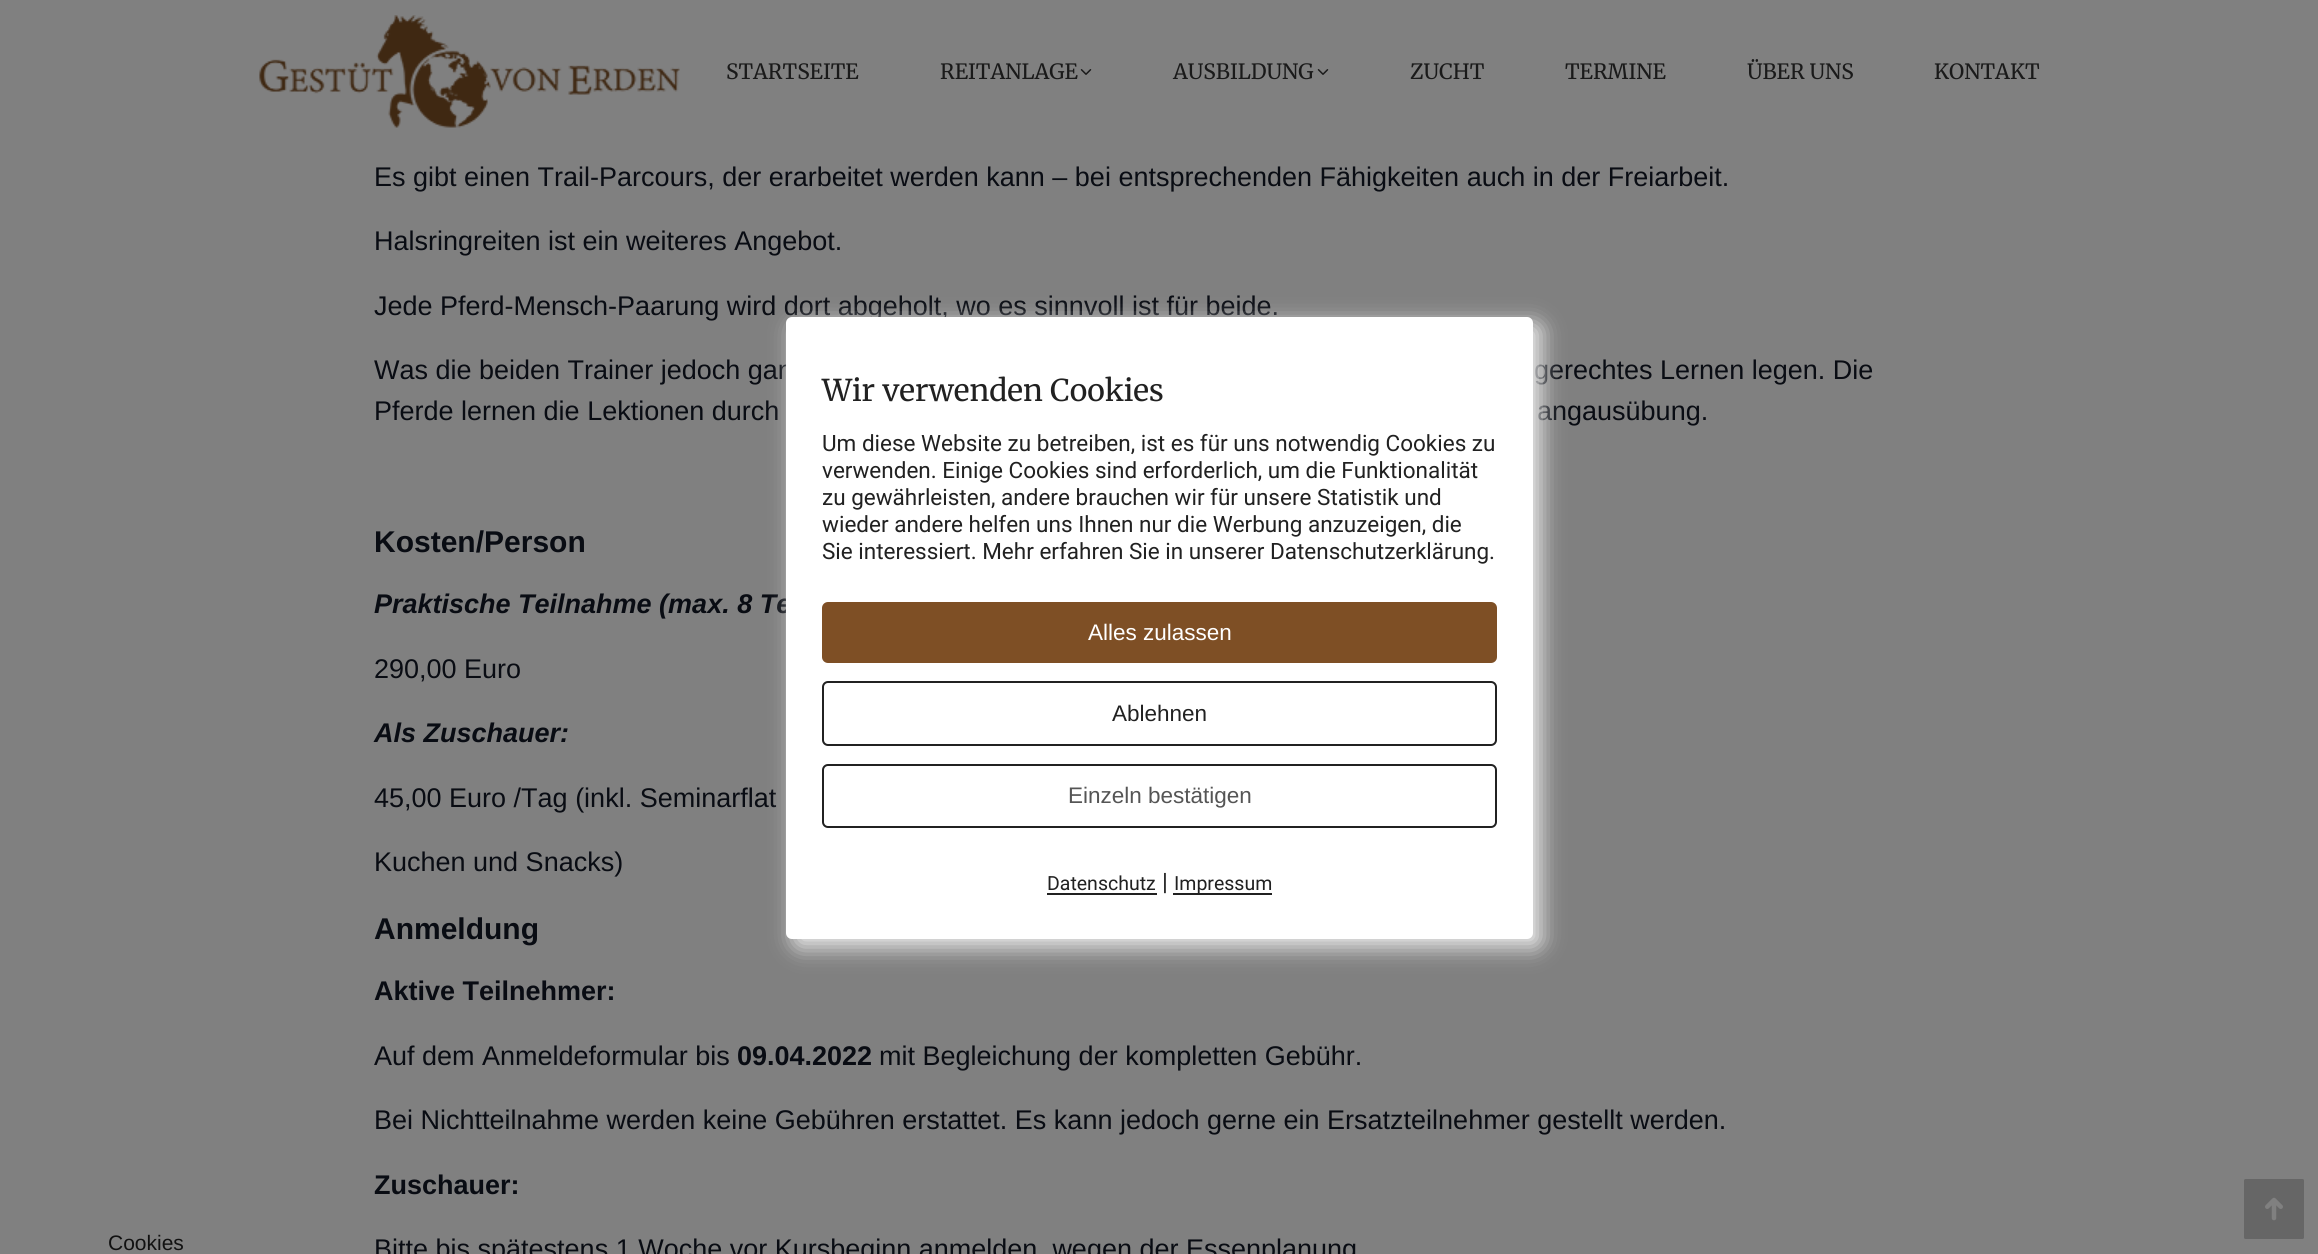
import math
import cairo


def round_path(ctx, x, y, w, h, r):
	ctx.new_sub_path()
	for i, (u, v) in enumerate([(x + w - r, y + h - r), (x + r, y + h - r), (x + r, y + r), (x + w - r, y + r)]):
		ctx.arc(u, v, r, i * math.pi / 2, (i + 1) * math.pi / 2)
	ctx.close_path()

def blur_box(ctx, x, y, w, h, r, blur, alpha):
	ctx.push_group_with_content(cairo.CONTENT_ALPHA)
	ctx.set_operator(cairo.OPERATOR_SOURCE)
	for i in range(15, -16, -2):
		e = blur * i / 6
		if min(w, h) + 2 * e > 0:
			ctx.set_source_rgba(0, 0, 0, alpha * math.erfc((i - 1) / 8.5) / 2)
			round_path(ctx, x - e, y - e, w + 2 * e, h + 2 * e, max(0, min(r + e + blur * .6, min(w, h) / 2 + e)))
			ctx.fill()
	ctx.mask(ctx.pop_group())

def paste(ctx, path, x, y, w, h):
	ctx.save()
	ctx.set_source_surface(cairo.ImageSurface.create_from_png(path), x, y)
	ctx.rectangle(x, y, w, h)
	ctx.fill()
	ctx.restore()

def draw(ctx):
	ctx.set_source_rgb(0.502, 0.502, 0.502)
	ctx.paint()
	paste(ctx, 'media/1.png', 259, 15, 421, 113)
	ctx.select_font_face('Merriweather')
	ctx.set_font_size(21)
	ctx.set_source_rgb(0.102, 0.102, 0.102)
	ctx.move_to(726, 79)
	ctx.show_text('STARTSEITE')
	ctx.move_to(940, 79)
	ctx.show_text('REITANLAGE')
	paste(ctx, 'media/2.png', 1080, 69, 12, 6)
	ctx.move_to(1173, 79)
	ctx.show_text('AUSBILDUNG')
	paste(ctx, 'media/2.png', 1317, 69, 12, 6)
	for x, y, s in [
		(1410, 79, 'ZUCHT'),
		(1565, 79, 'TERMINE'),
		(1747, 79, 'ÜBER UNS'),
		(1934, 79, 'KONTAKT'),
	]:
		ctx.move_to(x, y)
		ctx.show_text(s)
	ctx.select_font_face('Liberation Sans')
	ctx.set_font_size(27)
	ctx.set_source_rgb(0.039, 0.047, 0.078)
	for x, y, s in [
		(374, 186, 'Es gibt einen Trail-Parcours, der erarbeitet werden kann – bei entsprechenden Fähigkeiten auch in der Freiarbeit.'),
		(374, 250, 'Halsringreiten ist ein weiteres Angebot.'),
		(374, 315, 'Jede Pferd-Mensch-Paarung wird dort abgeholt, wo es sinnvoll ist für beide.'),
		(374, 379, 'Was die beiden Trainer jedoch gan'),
		(1534, 379, 'gerechtes Lernen legen. Die'),
		(374, 420, 'Pferde lernen die Lektionen durch'),
		(1537, 420, 'angausübung.'),
	]:
		ctx.move_to(x, y)
		ctx.show_text(s)
	ctx.select_font_face('Liberation Sans', cairo.FONT_SLANT_NORMAL, cairo.FONT_WEIGHT_BOLD)
	ctx.set_font_size(30)
	ctx.move_to(374, 552)
	ctx.show_text('Kosten/Person')
	ctx.select_font_face('Liberation Sans', cairo.FONT_SLANT_ITALIC, cairo.FONT_WEIGHT_BOLD)
	ctx.set_font_size(27)
	ctx.move_to(374, 613)
	ctx.show_text('Praktische Teilnahme (max. 8 Te')
	ctx.select_font_face('Liberation Sans')
	ctx.move_to(374, 678)
	ctx.show_text('290,00 Euro')
	ctx.select_font_face('Liberation Sans', cairo.FONT_SLANT_ITALIC, cairo.FONT_WEIGHT_BOLD)
	ctx.move_to(374, 742)
	ctx.show_text('Als Zuschauer:')
	ctx.select_font_face('Liberation Sans')
	ctx.move_to(374, 807)
	ctx.show_text('45,00 Euro /Tag (inkl. Seminarflat')
	ctx.move_to(374, 871)
	ctx.show_text('Kuchen und Snacks)')
	ctx.select_font_face('Liberation Sans', cairo.FONT_SLANT_NORMAL, cairo.FONT_WEIGHT_BOLD)
	ctx.set_font_size(30)
	ctx.move_to(374, 939)
	ctx.show_text('Anmeldung')
	ctx.set_font_size(27)
	ctx.move_to(374, 1000)
	ctx.show_text('Aktive Teilnehmer:')
	ctx.select_font_face('Liberation Sans')
	ctx.move_to(374, 1065)
	ctx.show_text('Auf dem Anmeldeformular bis')
	ctx.select_font_face('Liberation Sans', cairo.FONT_SLANT_NORMAL, cairo.FONT_WEIGHT_BOLD)
	ctx.move_to(737, 1065)
	ctx.show_text('09.04.2022')
	ctx.select_font_face('Liberation Sans')
	ctx.move_to(879, 1065)
	ctx.show_text('mit Begleichung der kompletten Gebühr.')
	ctx.move_to(374, 1129)
	ctx.show_text('Bei Nichtteilnahme werden keine Gebühren erstattet. Es kann jedoch gerne ein Ersatzteilnehmer gestellt werden.')
	ctx.select_font_face('Liberation Sans', cairo.FONT_SLANT_NORMAL, cairo.FONT_WEIGHT_BOLD)
	ctx.move_to(374, 1194)
	ctx.show_text('Zuschauer:')
	ctx.select_font_face('Liberation Sans')
	ctx.move_to(374, 1258)
	ctx.show_text('Bitte bis spätestens 1 Woche vor Kursbeginn anmelden, wegen der Essenplanung')
	ctx.set_source_rgb(0.4, 0.4, 0.4)
	round_path(ctx, 2244, 1179, 60, 60, 1.5)
	ctx.fill()
	paste(ctx, 'media/3.png', 2265, 1197, 18, 24)
	ctx.set_source_rgb(0.933, 0.933, 0.933)
	blur_box(ctx, 794, 324, 747, 623, 6, 11, 1)
	ctx.set_source_rgb(1, 1, 1)
	round_path(ctx, 786, 317, 747, 622, 6)
	ctx.fill()
	ctx.select_font_face('Merriweather')
	ctx.set_font_size(30)
	ctx.set_source_rgb(0.129, 0.129, 0.129)
	ctx.move_to(822, 401)
	ctx.show_text('Wir verwenden Cookies')
	ctx.select_font_face('Roboto')
	ctx.set_font_size(22.5)
	for x, y, s in [
		(822, 451, 'Um diese Website zu betreiben, ist es für uns notwendig Cookies zu'),
		(822, 478, 'verwenden. Einige Cookies sind erforderlich, um die Funktionalität'),
		(822, 505, 'zu gewährleisten, andere brauchen wir für unsere Statistik und'),
		(822, 532, 'wieder andere helfen uns Ihnen nur die Werbung anzuzeigen, die'),
		(822, 559, 'Sie interessiert. Mehr erfahren Sie in unserer Datenschutzerklärung.'),
	]:
		ctx.move_to(x, y)
		ctx.show_text(s)
	ctx.set_source_rgb(0.494, 0.31, 0.145)
	round_path(ctx, 822, 602, 675, 61, 6)
	ctx.fill()
	ctx.select_font_face('Liberation Sans')
	ctx.set_source_rgb(1, 1, 1)
	ctx.move_to(1088, 640)
	ctx.show_text('Alles zulassen')
	round_path(ctx, 823, 682, 673, 63, 5)
	ctx.set_source_rgb(0.129, 0.129, 0.129)
	ctx.stroke()
	ctx.move_to(1112, 721)
	ctx.show_text('Ablehnen')
	round_path(ctx, 823, 765, 673, 62, 5)
	ctx.stroke()
	ctx.set_source_rgb(0.333, 0.333, 0.333)
	ctx.move_to(1068, 803)
	ctx.show_text('Einzeln bestätigen')
	ctx.select_font_face('Roboto')
	ctx.set_font_size(19.5)
	ctx.set_source_rgb(0.129, 0.129, 0.129)
	ctx.move_to(1047, 890)
	ctx.show_text('Datenschutz')
	ctx.rectangle(1047, 893, 110, 2)
	ctx.fill()
	ctx.set_font_size(24)
	ctx.move_to(1162, 890)
	ctx.show_text('|')
	ctx.rectangle(1173, 893, 99, 2)
	ctx.fill()
	ctx.set_font_size(19.5)
	ctx.move_to(1174, 890)
	ctx.show_text('Impressum')
	ctx.select_font_face('Liberation Sans')
	ctx.set_font_size(21)
	ctx.set_source_rgb(0.067, 0.067, 0.067)
	ctx.move_to(108, 1250)
	ctx.show_text('Cookies')


surface = cairo.ImageSurface(cairo.FORMAT_RGB24, 2318, 1254)
ctx = cairo.Context(surface)
options = cairo.FontOptions()
options.set_hint_metrics(cairo.HINT_METRICS_OFF)
options.set_hint_style(cairo.HINT_STYLE_NONE)
ctx.set_font_options(options)
ctx.set_miter_limit(4)
draw(ctx)
surface.write_to_png('image.png')
